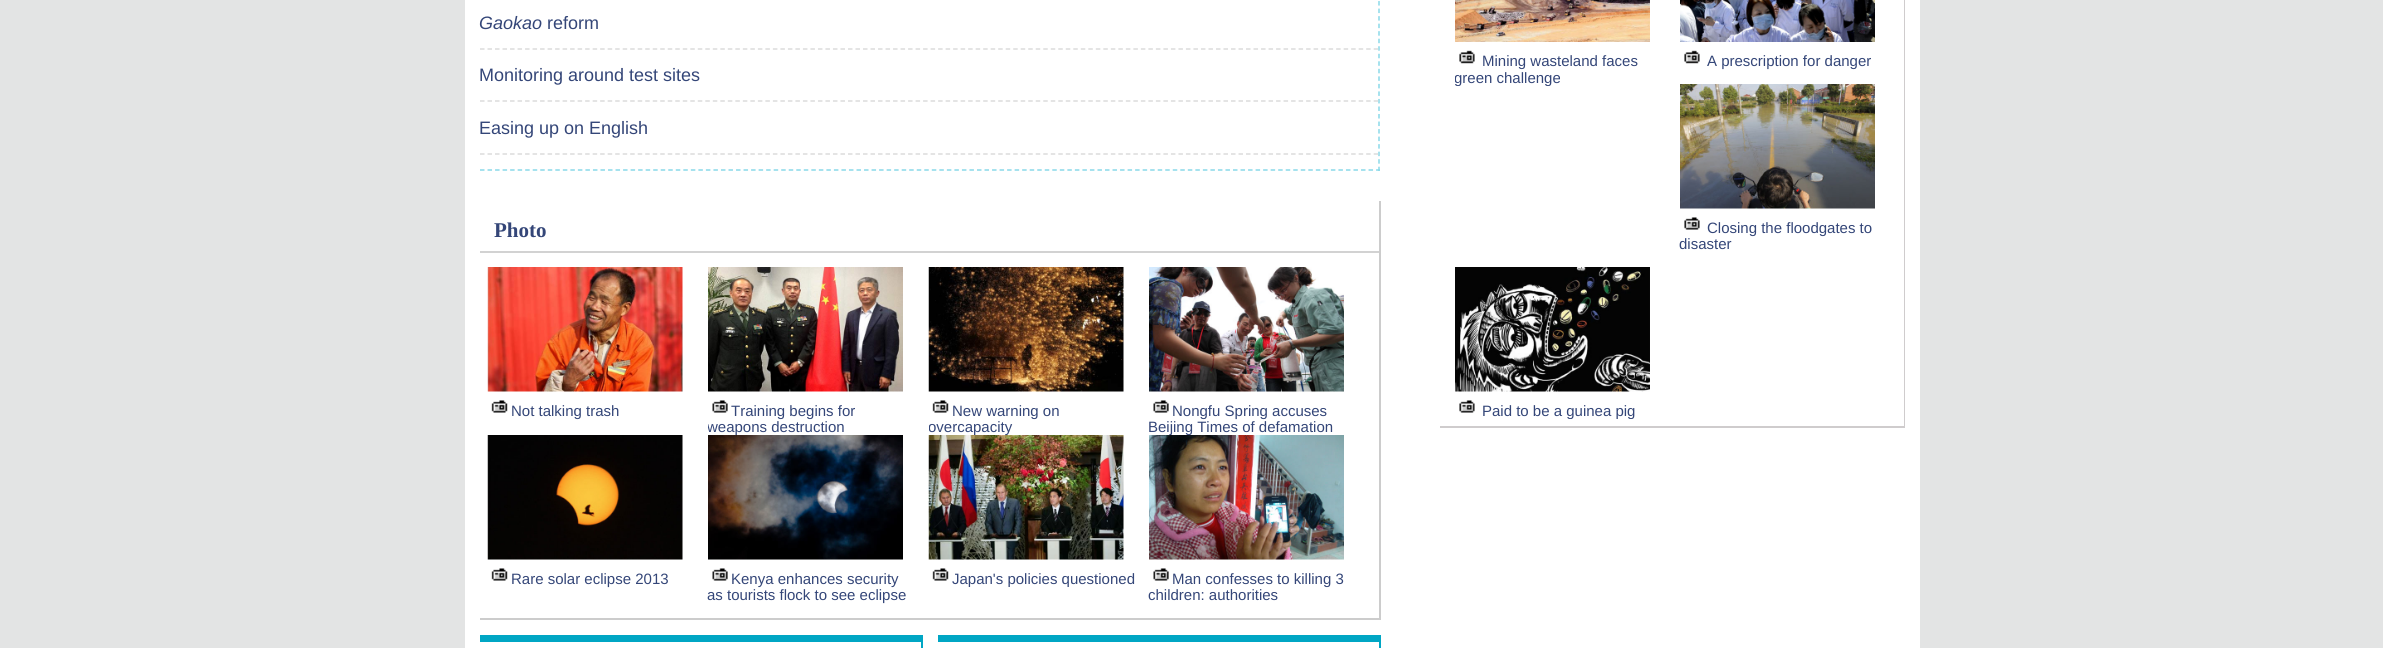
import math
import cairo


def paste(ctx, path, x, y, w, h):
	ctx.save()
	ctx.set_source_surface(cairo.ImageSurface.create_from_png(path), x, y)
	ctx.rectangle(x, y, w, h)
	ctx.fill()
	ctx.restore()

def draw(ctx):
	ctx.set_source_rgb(0.89, 0.894, 0.894)
	ctx.paint()
	ctx.set_source_rgb(1, 1, 1)
	ctx.rectangle(465, 0, 1455, 648)
	ctx.fill()
	ctx.new_path()
	ctx.move_to(1379, -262.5)
	ctx.line_to(1379, 171)
	ctx.set_source_rgb(0.537, 0.851, 0.914)
	ctx.set_line_width(1.5)
	ctx.set_dash([4.5, 3.03])
	ctx.stroke()
	ctx.new_path()
	ctx.move_to(480, 170)
	ctx.line_to(1380, 170)
	ctx.stroke()
	ctx.new_path()
	ctx.move_to(480, 49)
	ctx.line_to(1378.5, 49)
	ctx.set_source_rgb(0.859, 0.859, 0.859)
	ctx.set_dash([4.5, 3.01])
	ctx.stroke()
	ctx.select_font_face('Liberation Sans', cairo.FONT_SLANT_ITALIC)
	ctx.set_font_size(18)
	ctx.set_source_rgb(0.204, 0.275, 0.471)
	ctx.move_to(479, 29)
	ctx.show_text('Gaokao')
	ctx.select_font_face('Liberation Sans')
	ctx.move_to(547, 29)
	ctx.show_text('reform')
	ctx.new_path()
	ctx.move_to(480, 101)
	ctx.line_to(1378.5, 101)
	ctx.set_source_rgb(0.859, 0.859, 0.859)
	ctx.stroke()
	ctx.set_source_rgb(0.204, 0.275, 0.471)
	ctx.move_to(479, 81)
	ctx.show_text('Monitoring around test sites')
	ctx.new_path()
	ctx.move_to(480, 154)
	ctx.line_to(1378.5, 154)
	ctx.set_source_rgb(0.859, 0.859, 0.859)
	ctx.stroke()
	ctx.set_source_rgb(0.204, 0.275, 0.471)
	ctx.move_to(479, 134)
	ctx.show_text('Easing up on English')
	ctx.set_source_rgb(0.8, 0.8, 0.8)
	ctx.rectangle(1379, 201, 2, 419)
	ctx.rectangle(480, 618, 900, 2)
	ctx.fill()
	ctx.set_source_rgb(0.824, 0.824, 0.824)
	ctx.rectangle(480, 251, 899, 2)
	ctx.fill()
	ctx.select_font_face('Liberation Serif', cairo.FONT_SLANT_NORMAL, cairo.FONT_WEIGHT_BOLD)
	ctx.set_font_size(21)
	ctx.set_source_rgb(0.204, 0.275, 0.471)
	ctx.move_to(494, 237)
	ctx.show_text('Photo')
	paste(ctx, 'media/1.png', 487, 267, 196, 125)
	paste(ctx, 'media/2.png', 491, 400, 17, 13)
	ctx.select_font_face('Liberation Sans')
	ctx.set_font_size(15)
	ctx.move_to(511, 416)
	ctx.show_text('Not talking trash')
	paste(ctx, 'media/3.png', 708, 267, 195, 125)
	paste(ctx, 'media/4.png', 712, 400, 16, 13)
	ctx.move_to(731, 416)
	ctx.show_text('Training begins for')
	ctx.save()
	ctx.rectangle(708, 267, 210, 168)
	ctx.clip()
	ctx.move_to(707, 432)
	ctx.show_text('weapons destruction')
	ctx.restore()
	paste(ctx, 'media/5.png', 928, 267, 196, 125)
	paste(ctx, 'media/2.png', 932, 400, 17, 13)
	ctx.move_to(952, 416)
	ctx.show_text('New warning on')
	ctx.save()
	ctx.rectangle(929, 267, 210, 168)
	ctx.clip()
	ctx.move_to(928, 432)
	ctx.show_text('overcapacity')
	ctx.restore()
	paste(ctx, 'media/6.png', 1149, 267, 195, 125)
	paste(ctx, 'media/4.png', 1153, 400, 16, 13)
	ctx.move_to(1172, 416)
	ctx.show_text('Nongfu Spring accuses')
	ctx.move_to(1148, 432)
	ctx.show_text('Beijing Times of defamation')
	paste(ctx, 'media/7.png', 487, 435, 196, 125)
	paste(ctx, 'media/2.png', 491, 568, 17, 13)
	ctx.move_to(511, 584)
	ctx.show_text('Rare solar eclipse 2013')
	paste(ctx, 'media/8.png', 708, 435, 195, 125)
	paste(ctx, 'media/4.png', 712, 568, 16, 13)
	ctx.move_to(731, 584)
	ctx.show_text('Kenya enhances security')
	ctx.move_to(707, 600)
	ctx.show_text('as tourists flock to see eclipse')
	paste(ctx, 'media/9.png', 928, 435, 196, 125)
	paste(ctx, 'media/2.png', 932, 568, 17, 13)
	ctx.save()
	ctx.rectangle(929, 435, 210, 152)
	ctx.clip()
	ctx.move_to(952, 584)
	ctx.show_text('Japan\'s policies questioned')
	ctx.restore()
	paste(ctx, 'media/10.png', 1149, 435, 195, 125)
	paste(ctx, 'media/4.png', 1153, 568, 16, 13)
	ctx.move_to(1172, 584)
	ctx.show_text('Man confesses to killing 3')
	ctx.move_to(1148, 600)
	ctx.show_text('children: authorities')
	ctx.set_source_rgb(0, 0.651, 0.769)
	ctx.rectangle(480, 635, 443, 7)
	ctx.rectangle(921, 635, 2, 13)
	ctx.rectangle(938, 635, 442, 7)
	ctx.rectangle(1379, 635, 2, 13)
	ctx.fill()
	ctx.set_source_rgb(0.812, 0.8, 0.804)
	ctx.rectangle(1904, 0, 1, 428)
	ctx.rectangle(1440, 426, 465, 2)
	ctx.fill()
	paste(ctx, 'media/11.png', 1455, 0, 195, 42)
	paste(ctx, 'media/12.png', 1459, 50, 16, 14)
	ctx.set_source_rgb(0.204, 0.275, 0.471)
	ctx.move_to(1482, 66)
	ctx.show_text('Mining wasteland faces')
	ctx.save()
	ctx.rectangle(1455, 0, 210, 86)
	ctx.clip()
	ctx.move_to(1454, 83)
	ctx.show_text('green challenge')
	ctx.restore()
	paste(ctx, 'media/13.png', 1680, 0, 195, 42)
	paste(ctx, 'media/12.png', 1684, 50, 16, 14)
	ctx.move_to(1707, 66)
	ctx.show_text('A prescription for danger')
	paste(ctx, 'media/14.png', 1680, 84, 195, 125)
	paste(ctx, 'media/15.png', 1684, 217, 16, 13)
	ctx.move_to(1707, 233)
	ctx.show_text('Closing the floodgates to')
	ctx.move_to(1679, 249)
	ctx.show_text('disaster')
	paste(ctx, 'media/16.png', 1455, 267, 195, 125)
	paste(ctx, 'media/15.png', 1459, 400, 16, 13)
	ctx.save()
	ctx.rectangle(1455, 267, 210, 152)
	ctx.clip()
	ctx.move_to(1482, 416)
	ctx.show_text('Paid to be a guinea pig')
	ctx.restore()


surface = cairo.ImageSurface(cairo.FORMAT_RGB24, 2383, 648)
ctx = cairo.Context(surface)
options = cairo.FontOptions()
options.set_hint_metrics(cairo.HINT_METRICS_OFF)
options.set_hint_style(cairo.HINT_STYLE_NONE)
ctx.set_font_options(options)
ctx.set_miter_limit(4)
draw(ctx)
surface.write_to_png('image.png')
